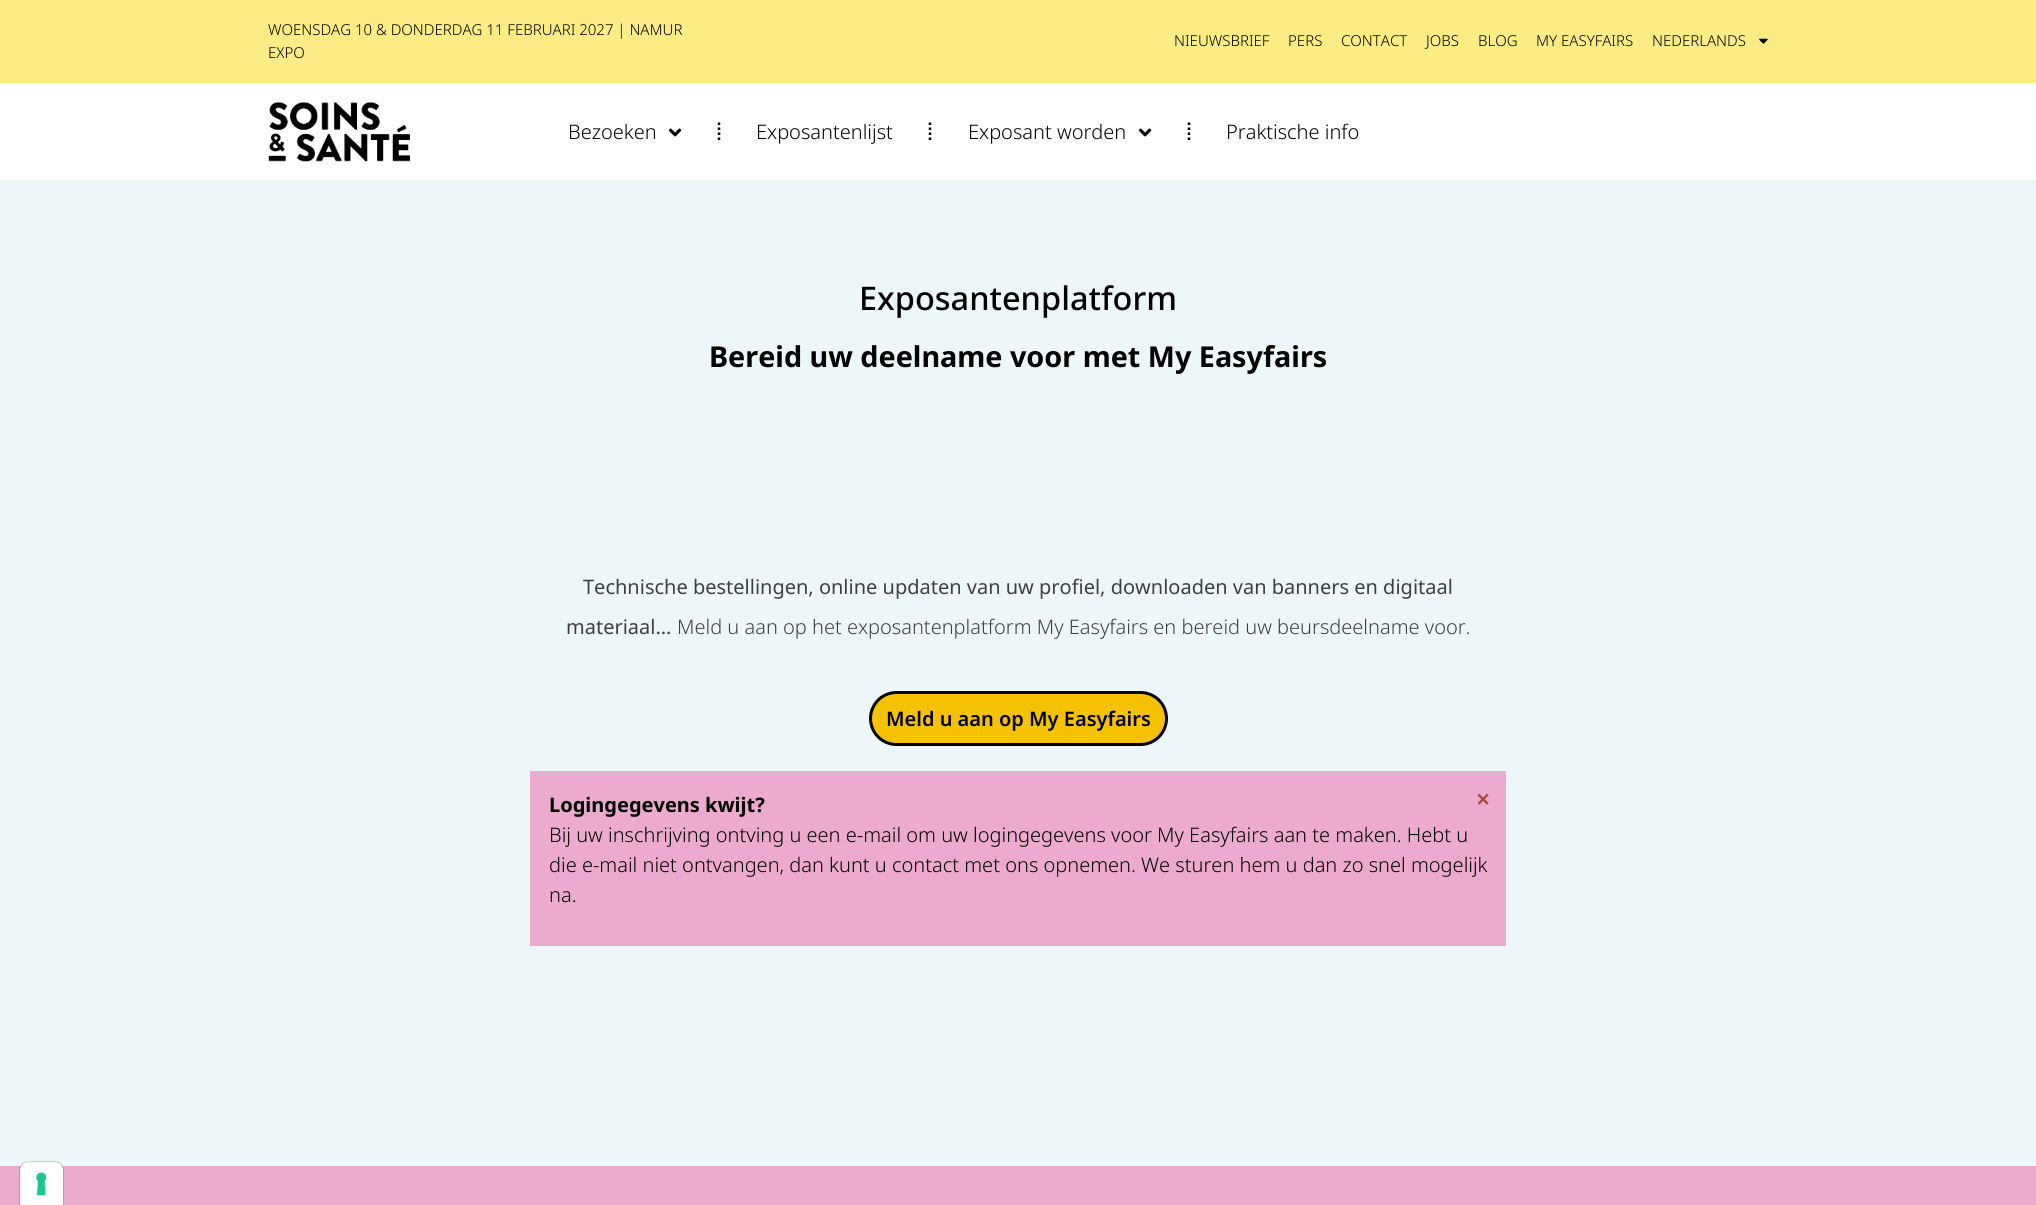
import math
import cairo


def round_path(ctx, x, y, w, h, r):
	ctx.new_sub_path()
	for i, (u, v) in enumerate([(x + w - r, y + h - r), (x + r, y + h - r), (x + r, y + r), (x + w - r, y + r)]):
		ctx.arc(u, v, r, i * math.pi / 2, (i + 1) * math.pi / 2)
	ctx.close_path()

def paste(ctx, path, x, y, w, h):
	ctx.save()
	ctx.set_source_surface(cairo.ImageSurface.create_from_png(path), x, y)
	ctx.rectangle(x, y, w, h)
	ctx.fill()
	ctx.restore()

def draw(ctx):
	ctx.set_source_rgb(0.929, 0.965, 0.976)
	ctx.paint()
	ctx.set_source_rgb(0.988, 0.922, 0.514)
	ctx.rectangle(0, 0, 2036, 83)
	ctx.fill()
	ctx.select_font_face('Noto Sans Light')
	ctx.set_font_size(15)
	ctx.set_source_rgb(0, 0, 0)
	for x, y, s in [
		(268, 35, 'WOENSDAG 10 & DONDERDAG 11 FEBRUARI 2027 | NAMUR'),
		(268, 58, 'EXPO'),
		(1174, 46, 'NIEUWSBRIEF'),
		(1288, 46, 'PERS'),
		(1341, 46, 'CONTACT'),
		(1426, 46, 'JOBS'),
		(1478, 46, 'BLOG'),
		(1536, 46, 'MY EASYFAIRS'),
		(1652, 46, 'NEDERLANDS'),
	]:
		ctx.move_to(x, y)
		ctx.show_text(s)
	paste(ctx, 'media/1.png', 1759, 38, 9, 6)
	ctx.set_source_rgb(1, 1, 1)
	ctx.rectangle(0, 83, 2036, 97)
	ctx.fill()
	paste(ctx, 'media/2.png', 268, 102, 142, 60)
	ctx.set_font_size(20)
	ctx.set_source_rgb(0, 0, 0)
	ctx.move_to(568, 139)
	ctx.show_text('Bezoeken')
	paste(ctx, 'media/3.png', 668, 128, 14, 9)
	ctx.new_path()
	ctx.move_to(719, 122.5)
	ctx.line_to(719, 142.5)
	ctx.set_line_width(2.5)
	ctx.set_dash([2.5, 2.5])
	ctx.stroke()
	ctx.move_to(756, 139)
	ctx.show_text('Exposantenlijst')
	ctx.new_path()
	ctx.move_to(930, 122.5)
	ctx.line_to(930, 142.5)
	ctx.stroke()
	ctx.move_to(968, 139)
	ctx.show_text('Exposant worden')
	paste(ctx, 'media/3.png', 1138, 128, 14, 9)
	ctx.new_path()
	ctx.move_to(1189, 122.5)
	ctx.line_to(1189, 142.5)
	ctx.stroke()
	ctx.move_to(1226, 139)
	ctx.show_text('Praktische info')
	ctx.select_font_face('Noto Sans Medium')
	ctx.set_font_size(32.5)
	ctx.move_to(859, 310)
	ctx.show_text('Exposantenplatform')
	ctx.select_font_face('Noto Sans', cairo.FONT_SLANT_NORMAL, cairo.FONT_WEIGHT_BOLD)
	ctx.set_font_size(28.75)
	ctx.move_to(709, 367)
	ctx.show_text('Bereid uw deelname voor met My Easyfairs')
	ctx.select_font_face('Noto Sans')
	ctx.set_font_size(20)
	ctx.set_source_rgb(0.247, 0.247, 0.247)
	ctx.move_to(583, 594)
	ctx.show_text('Technische bestellingen, online updaten van uw profiel, downloaden van banners en digitaal')
	ctx.move_to(566, 634)
	ctx.show_text('materiaal…')
	ctx.select_font_face('Noto Sans Light')
	ctx.move_to(677, 634)
	ctx.show_text('Meld u aan op het exposantenplatform My Easyfairs en bereid uw beursdeelname voor.')
	ctx.set_source_rgb(0.961, 0.757, 0)
	round_path(ctx, 870.5, 692.5, 296, 52, 26)
	ctx.fill_preserve()
	ctx.set_source_rgb(0, 0, 0)
	ctx.set_line_width(3)
	ctx.set_dash([])
	ctx.stroke()
	ctx.select_font_face('Noto Sans SemiBold')
	ctx.move_to(886, 726)
	ctx.show_text('Meld u aan op My Easyfairs')
	ctx.set_source_rgb(0.925, 0.667, 0.808)
	ctx.rectangle(530, 771, 976, 175)
	ctx.fill()
	ctx.select_font_face('Noto Sans', cairo.FONT_SLANT_NORMAL, cairo.FONT_WEIGHT_BOLD)
	ctx.set_source_rgb(0, 0, 0)
	ctx.move_to(549, 812)
	ctx.show_text('Logingegevens kwijt?')
	ctx.select_font_face('Noto Sans SemiBold')
	ctx.set_font_size(25)
	ctx.set_source_rgb(0.663, 0.267, 0.259)
	ctx.move_to(1476, 808)
	ctx.show_text('×')
	ctx.select_font_face('Noto Sans Light')
	ctx.set_font_size(20)
	ctx.set_source_rgb(0, 0, 0)
	for x, y, s in [
		(549, 842, 'Bij uw inschrijving ontving u een e-mail om uw logingegevens voor My Easyfairs aan te maken. Hebt u'),
		(549, 872, 'die e-mail niet ontvangen, dan kunt u contact met ons opnemen. We sturen hem u dan zo snel mogelijk'),
		(549, 902, 'na.'),
	]:
		ctx.move_to(x, y)
		ctx.show_text(s)
	ctx.set_source_rgb(0.925, 0.667, 0.808)
	ctx.rectangle(0, 1166, 2036, 39)
	ctx.fill()
	ctx.new_path()
	ctx.move_to(28, 1161.5)
	ctx.line_to(55, 1161.5)
	ctx.curve_to(59.5, 1161.5, 63.5, 1165.5, 63.5, 1170)
	ctx.line_to(63.5, 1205.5)
	ctx.line_to(19.5, 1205.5)
	ctx.line_to(19.5, 1170)
	ctx.curve_to(19.5, 1165.5, 23.5, 1161.5, 28, 1161.5)
	ctx.close_path()
	ctx.set_source_rgba(0, 0, 0, 0.15)
	ctx.set_line_width(1)
	ctx.stroke()
	ctx.set_source_rgb(1, 1, 1)
	ctx.new_path()
	ctx.move_to(28, 1163)
	ctx.line_to(55, 1163)
	ctx.curve_to(59.5, 1163, 63, 1166.5, 63, 1171)
	ctx.line_to(63, 1205)
	ctx.line_to(20, 1205)
	ctx.line_to(20, 1171)
	ctx.curve_to(20, 1166.5, 23.5, 1163, 28, 1163)
	ctx.close_path()
	ctx.fill()
	paste(ctx, 'media/4.png', 36, 1172, 11, 23)


surface = cairo.ImageSurface(cairo.FORMAT_RGB24, 2036, 1205)
ctx = cairo.Context(surface)
options = cairo.FontOptions()
options.set_hint_metrics(cairo.HINT_METRICS_OFF)
options.set_hint_style(cairo.HINT_STYLE_NONE)
ctx.set_font_options(options)
ctx.set_miter_limit(4)
draw(ctx)
surface.write_to_png('image.png')
